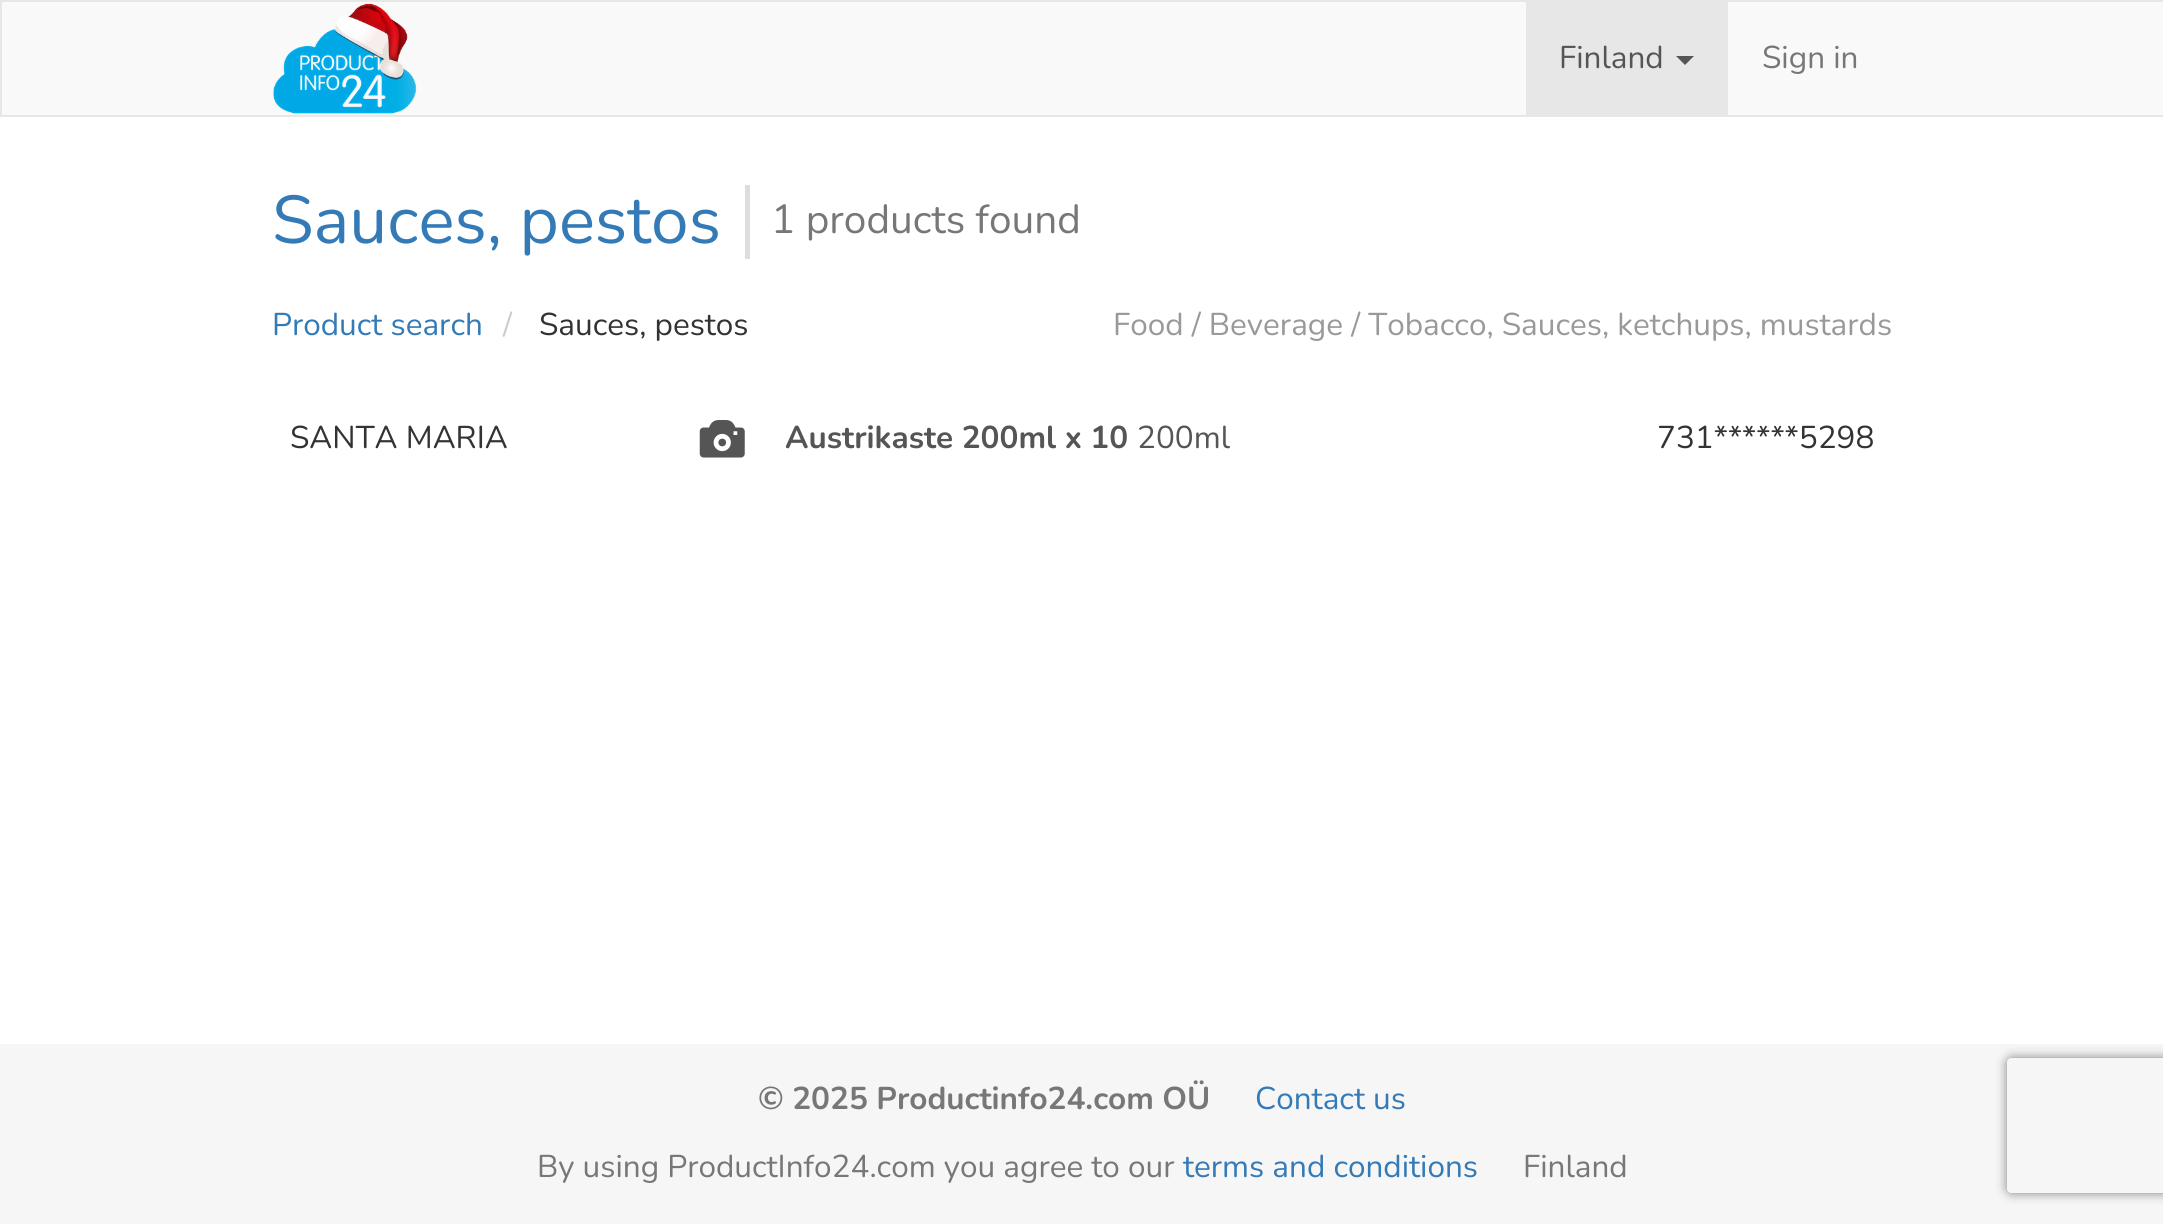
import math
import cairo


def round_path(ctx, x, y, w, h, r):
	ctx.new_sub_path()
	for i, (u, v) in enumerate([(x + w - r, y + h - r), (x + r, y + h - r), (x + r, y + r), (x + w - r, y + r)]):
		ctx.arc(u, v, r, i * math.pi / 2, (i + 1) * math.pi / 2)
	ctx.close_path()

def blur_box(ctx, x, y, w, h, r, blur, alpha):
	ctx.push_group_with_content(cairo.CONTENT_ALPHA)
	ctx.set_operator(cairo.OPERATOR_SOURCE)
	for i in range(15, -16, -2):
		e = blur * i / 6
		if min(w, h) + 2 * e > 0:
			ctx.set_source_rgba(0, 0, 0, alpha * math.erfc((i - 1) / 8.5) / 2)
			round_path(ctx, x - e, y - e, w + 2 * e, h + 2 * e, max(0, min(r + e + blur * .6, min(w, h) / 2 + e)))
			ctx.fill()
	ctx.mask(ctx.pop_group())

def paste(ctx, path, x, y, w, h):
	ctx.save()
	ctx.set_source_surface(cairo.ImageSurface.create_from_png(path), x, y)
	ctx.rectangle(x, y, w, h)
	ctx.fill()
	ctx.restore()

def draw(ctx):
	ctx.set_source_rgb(1, 1, 1)
	ctx.paint()
	ctx.set_source_rgb(0.973, 0.973, 0.973)
	ctx.rectangle(1, 1, 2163, 115)
	ctx.fill_preserve()
	ctx.set_source_rgb(0.906, 0.906, 0.906)
	ctx.stroke()
	paste(ctx, 'media/1.png', 273, 3, 144, 111)
	ctx.rectangle(1526, 2, 202, 113)
	ctx.fill()
	ctx.select_font_face('Nunito')
	ctx.set_font_size(31.5)
	ctx.set_source_rgb(0.333, 0.333, 0.333)
	ctx.move_to(1559, 68)
	ctx.show_text('Finland')
	ctx.new_path()
	ctx.move_to(1676, 56)
	ctx.line_to(1694, 56)
	ctx.line_to(1685, 65)
	ctx.close_path()
	ctx.fill()
	ctx.set_source_rgb(0.467, 0.467, 0.467)
	ctx.move_to(1762, 68)
	ctx.show_text('Sign in')
	ctx.set_source_rgb(0.867, 0.867, 0.867)
	ctx.rectangle(745, 185, 5, 74)
	ctx.fill()
	ctx.set_font_size(67.5)
	ctx.set_source_rgb(0.2, 0.478, 0.718)
	ctx.move_to(272, 243)
	ctx.show_text('Sauces, pestos')
	ctx.set_font_size(40.5)
	ctx.set_source_rgb(0.467, 0.467, 0.467)
	ctx.move_to(771, 233)
	ctx.show_text('1 products found')
	ctx.set_font_size(31.5)
	ctx.set_source_rgb(0.2, 0.478, 0.718)
	ctx.move_to(272, 335)
	ctx.show_text('Product search')
	ctx.set_source_rgb(0.8, 0.8, 0.8)
	ctx.move_to(503, 335)
	ctx.show_text('/')
	ctx.set_source_rgb(0.2, 0.2, 0.2)
	ctx.move_to(539, 335)
	ctx.show_text('Sauces, pestos')
	ctx.set_source_rgb(0.6, 0.6, 0.6)
	ctx.move_to(1113, 335)
	ctx.show_text('Food / Beverage / Tobacco, Sauces, ketchups, mustards')
	ctx.set_source_rgb(0.2, 0.2, 0.2)
	ctx.move_to(290, 448)
	ctx.show_text('SANTA MARIA')
	paste(ctx, 'media/2.png', 699, 420, 46, 38)
	ctx.select_font_face('Nunito', cairo.FONT_SLANT_NORMAL, cairo.FONT_WEIGHT_BOLD)
	ctx.set_source_rgb(0.333, 0.333, 0.333)
	ctx.move_to(785, 448)
	ctx.show_text('Austrikaste 200ml x 10')
	ctx.select_font_face('Nunito')
	ctx.move_to(1137, 448)
	ctx.show_text('200ml')
	ctx.set_source_rgb(0.2, 0.2, 0.2)
	ctx.move_to(1657, 448)
	ctx.show_text('731******5298')
	ctx.set_source_rgb(0.961, 0.961, 0.961)
	ctx.rectangle(0, 1044, 2163, 180)
	ctx.fill()
	ctx.select_font_face('Nunito', cairo.FONT_SLANT_NORMAL, cairo.FONT_WEIGHT_BOLD)
	ctx.set_source_rgb(0.467, 0.467, 0.467)
	ctx.move_to(758, 1109)
	ctx.show_text('© 2025 Productinfo24.com OÜ')
	ctx.select_font_face('Nunito')
	ctx.set_source_rgb(0.2, 0.478, 0.718)
	ctx.move_to(1255, 1109)
	ctx.show_text('Contact us')
	ctx.set_source_rgb(0.467, 0.467, 0.467)
	ctx.move_to(537, 1177)
	ctx.show_text('By using ProductInfo24.com you agree to our')
	ctx.set_source_rgb(0.2, 0.478, 0.718)
	ctx.move_to(1183, 1177)
	ctx.show_text('terms and conditions')
	ctx.set_source_rgb(0.467, 0.467, 0.467)
	ctx.move_to(1523, 1177)
	ctx.show_text('Finland')
	ctx.save()
	ctx.set_fill_rule(cairo.FILL_RULE_EVEN_ODD)
	ctx.new_path()
	ctx.move_to(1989, 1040)
	ctx.line_to(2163, 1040)
	ctx.line_to(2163, 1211)
	ctx.line_to(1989, 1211)
	ctx.close_path()
	ctx.move_to(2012, 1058)
	ctx.line_to(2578, 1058)
	ctx.curve_to(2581, 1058, 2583, 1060, 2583, 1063)
	ctx.line_to(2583, 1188)
	ctx.curve_to(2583, 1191, 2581, 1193, 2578, 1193)
	ctx.line_to(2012, 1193)
	ctx.curve_to(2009, 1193, 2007, 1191, 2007, 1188)
	ctx.line_to(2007, 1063)
	ctx.curve_to(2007, 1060, 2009, 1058, 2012, 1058)
	ctx.close_path()
	ctx.clip()
	ctx.set_source_rgb(0.502, 0.502, 0.502)
	blur_box(ctx, 2007, 1058, 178, 135, 5, 5.5, 1)
	ctx.restore()


surface = cairo.ImageSurface(cairo.FORMAT_RGB24, 2163, 1224)
ctx = cairo.Context(surface)
options = cairo.FontOptions()
options.set_hint_metrics(cairo.HINT_METRICS_OFF)
options.set_hint_style(cairo.HINT_STYLE_NONE)
ctx.set_font_options(options)
ctx.set_miter_limit(4)
draw(ctx)
surface.write_to_png('image.png')
